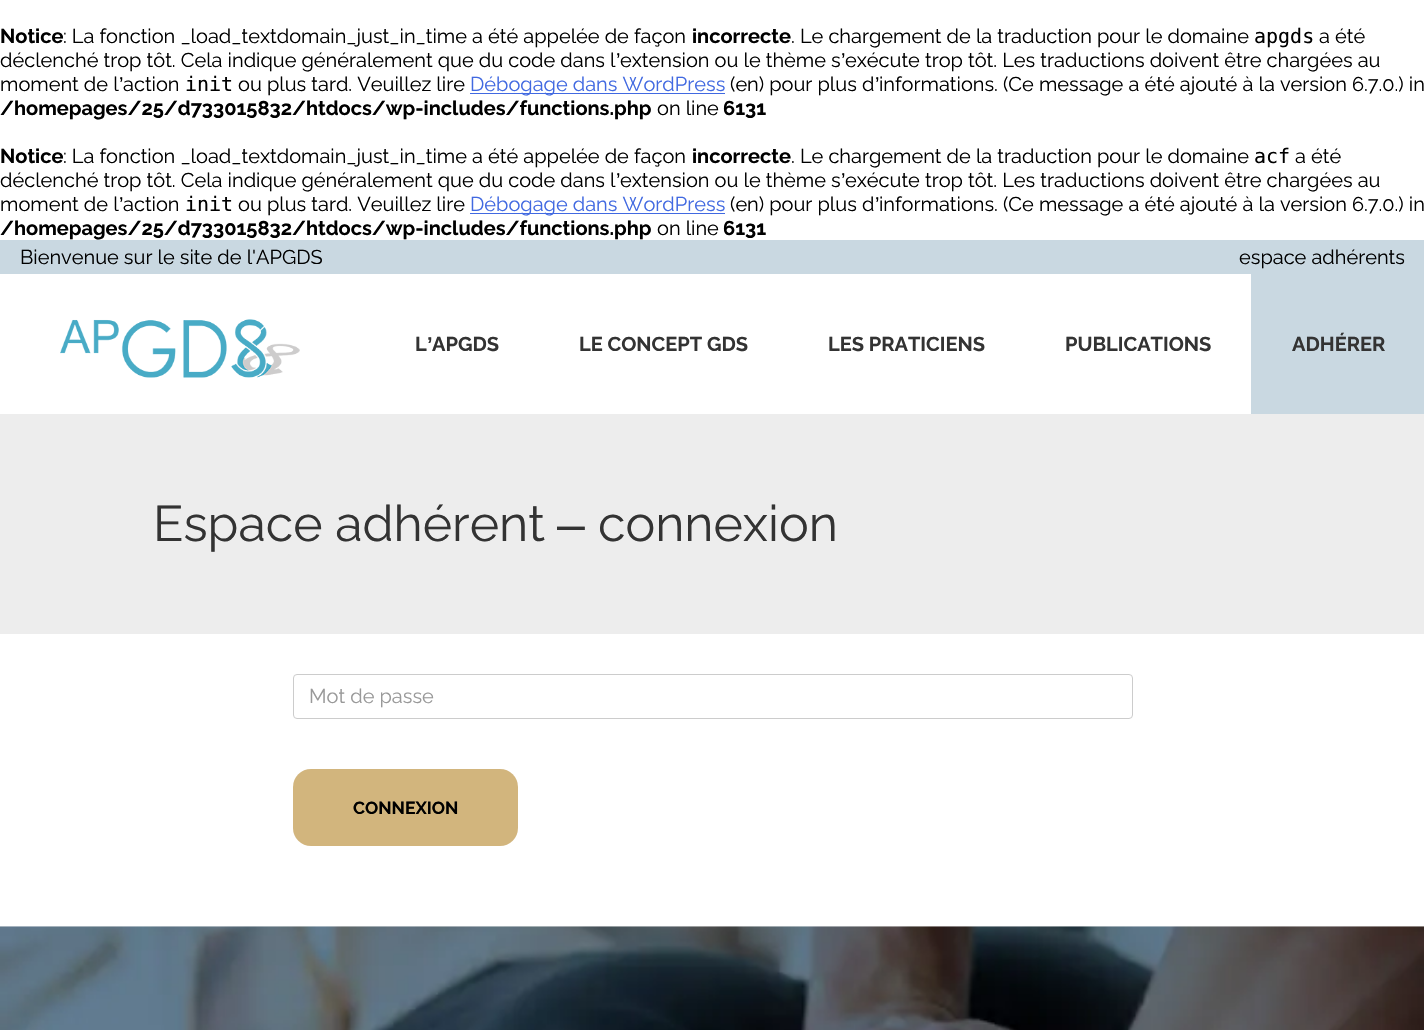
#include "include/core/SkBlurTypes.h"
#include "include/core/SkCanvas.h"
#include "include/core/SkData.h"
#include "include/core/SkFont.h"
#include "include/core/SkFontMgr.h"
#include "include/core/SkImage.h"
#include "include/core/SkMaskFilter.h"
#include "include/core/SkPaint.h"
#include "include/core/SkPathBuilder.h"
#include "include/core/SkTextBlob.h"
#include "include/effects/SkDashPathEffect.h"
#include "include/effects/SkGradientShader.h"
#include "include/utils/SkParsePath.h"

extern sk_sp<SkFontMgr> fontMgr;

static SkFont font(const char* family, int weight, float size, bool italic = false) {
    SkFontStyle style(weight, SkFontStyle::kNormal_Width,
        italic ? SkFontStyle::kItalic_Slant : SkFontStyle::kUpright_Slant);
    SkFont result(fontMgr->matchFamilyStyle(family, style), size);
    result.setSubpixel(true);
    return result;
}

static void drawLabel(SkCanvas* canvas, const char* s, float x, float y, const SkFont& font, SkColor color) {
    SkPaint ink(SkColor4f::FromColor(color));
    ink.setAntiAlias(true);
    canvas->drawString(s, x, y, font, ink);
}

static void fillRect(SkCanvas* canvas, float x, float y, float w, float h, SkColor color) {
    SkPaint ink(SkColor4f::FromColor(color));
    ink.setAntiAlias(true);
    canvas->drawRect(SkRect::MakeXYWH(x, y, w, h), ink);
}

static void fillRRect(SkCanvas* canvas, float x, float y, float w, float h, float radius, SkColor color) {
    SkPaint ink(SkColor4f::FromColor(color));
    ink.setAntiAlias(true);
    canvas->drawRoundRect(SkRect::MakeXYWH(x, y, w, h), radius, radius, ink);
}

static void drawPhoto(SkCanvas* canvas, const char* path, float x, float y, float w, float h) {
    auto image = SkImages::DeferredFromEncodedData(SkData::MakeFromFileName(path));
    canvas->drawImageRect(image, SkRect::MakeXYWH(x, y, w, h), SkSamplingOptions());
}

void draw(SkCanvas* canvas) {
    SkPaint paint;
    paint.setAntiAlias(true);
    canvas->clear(0xFFFFFFFF);
    SkFont font1 = font("Raleway", 700, 20);
    drawLabel(canvas, "Notice", 0, 43, font1, 0xFF000000);
    SkFont font2 = font("Raleway", 400, 20);
    drawLabel(canvas, ": La fonction _load_textdomain_just_in_time a été appelée de façon", 63, 43, font2, 0xFF000000);
    drawLabel(canvas, "incorrecte", 692, 43, font1, 0xFF000000);
    drawLabel(canvas, ". Le chargement de la traduction pour le domaine", 791, 43, font2, 0xFF000000);
    SkFont font3 = font("DejaVu Sans Mono", 400, 20);
    drawLabel(canvas, "apgds", 1254, 43, font3, 0xFF000000);
    drawLabel(canvas, "a été", 1319, 43, font2, 0xFF000000);
    drawLabel(canvas, "déclenché trop tôt. Cela indique généralement que du code dans l", 0, 67, font2, 0xFF000000);
    SkFont font4 = font("Liberation Sans", 400, 20);
    drawLabel(canvas, "’", 616, 67, font4, 0xFF000000);
    drawLabel(canvas, "extension ou le thème s", 620, 67, font2, 0xFF000000);
    drawLabel(canvas, "’", 841, 67, font4, 0xFF000000);
    drawLabel(canvas, "exécute trop tôt. Les traductions doivent être chargées au", 845, 67, font2, 0xFF000000);
    drawLabel(canvas, "moment de l", 0, 91, font2, 0xFF000000);
    drawLabel(canvas, "’", 119, 91, font4, 0xFF000000);
    drawLabel(canvas, "action", 123, 91, font2, 0xFF000000);
    drawLabel(canvas, "init", 185, 91, font3, 0xFF000000);
    drawLabel(canvas, "ou plus tard. Veuillez lire", 238, 91, font2, 0xFF000000);
    fillRect(canvas, 470, 93, 255, 1, 0xFF4169E1);
    drawLabel(canvas, "Débogage dans WordPress", 470, 91, font2, 0xFF4169E1);
    drawLabel(canvas, "(en) pour plus d", 730, 91, font2, 0xFF000000);
    drawLabel(canvas, "’", 875, 91, font4, 0xFF000000);
    drawLabel(canvas, "informations. (Ce message a été ajouté à la version 6.7.0.) in", 879, 91, font2, 0xFF000000);
    drawLabel(canvas, "/homepages/25/d733015832/htdocs/wp-includes/functions.php", 0, 115, font1, 0xFF000000);
    drawLabel(canvas, "on line", 657, 115, font2, 0xFF000000);
    drawLabel(canvas, "6131", 723, 115, font1, 0xFF000000);
    drawLabel(canvas, "Notice", 0, 163, font1, 0xFF000000);
    drawLabel(canvas, ": La fonction _load_textdomain_just_in_time a été appelée de façon", 63, 163, font2, 0xFF000000);
    drawLabel(canvas, "incorrecte", 692, 163, font1, 0xFF000000);
    drawLabel(canvas, ". Le chargement de la traduction pour le domaine", 791, 163, font2, 0xFF000000);
    drawLabel(canvas, "acf", 1254, 163, font3, 0xFF000000);
    drawLabel(canvas, "a été", 1295, 163, font2, 0xFF000000);
    drawLabel(canvas, "déclenché trop tôt. Cela indique généralement que du code dans l", 0, 187, font2, 0xFF000000);
    drawLabel(canvas, "’", 616, 187, font4, 0xFF000000);
    drawLabel(canvas, "extension ou le thème s", 620, 187, font2, 0xFF000000);
    drawLabel(canvas, "’", 841, 187, font4, 0xFF000000);
    drawLabel(canvas, "exécute trop tôt. Les traductions doivent être chargées au", 845, 187, font2, 0xFF000000);
    drawLabel(canvas, "moment de l", 0, 211, font2, 0xFF000000);
    drawLabel(canvas, "’", 119, 211, font4, 0xFF000000);
    drawLabel(canvas, "action", 123, 211, font2, 0xFF000000);
    drawLabel(canvas, "init", 185, 211, font3, 0xFF000000);
    drawLabel(canvas, "ou plus tard. Veuillez lire", 238, 211, font2, 0xFF000000);
    fillRect(canvas, 470, 213, 255, 1, 0xFF4169E1);
    drawLabel(canvas, "Débogage dans WordPress", 470, 211, font2, 0xFF4169E1);
    drawLabel(canvas, "(en) pour plus d", 730, 211, font2, 0xFF000000);
    drawLabel(canvas, "’", 875, 211, font4, 0xFF000000);
    drawLabel(canvas, "informations. (Ce message a été ajouté à la version 6.7.0.) in", 879, 211, font2, 0xFF000000);
    drawLabel(canvas, "/homepages/25/d733015832/htdocs/wp-includes/functions.php", 0, 235, font1, 0xFF000000);
    drawLabel(canvas, "on line", 657, 235, font2, 0xFF000000);
    drawLabel(canvas, "6131", 723, 235, font1, 0xFF000000);
    fillRect(canvas, 0, 240, 1424, 34, 0xFFC9D8E1);
    drawLabel(canvas, "Bienvenue sur le site de l'APGDS", 20, 264, font2, 0xFF000000);
    drawLabel(canvas, "espace adhérents", 1239, 264, font2, 0xFF000000);
    drawPhoto(canvas, "assets/img1.png", 60, 319, 240, 59);
    drawLabel(canvas, "L", 415, 351, font1, 0xFF333333);
    SkFont font5 = font("Liberation Sans", 700, 20);
    drawLabel(canvas, "’", 427, 351, font5, 0xFF333333);
    drawLabel(canvas, "APGDS", 432, 351, font1, 0xFF333333);
    drawLabel(canvas, "LE CONCEPT GDS", 579, 351, font1, 0xFF333333);
    drawLabel(canvas, "LES PRATICIENS", 828, 351, font1, 0xFF333333);
    drawLabel(canvas, "PUBLICATIONS", 1065, 351, font1, 0xFF333333);
    fillRect(canvas, 1251, 274, 173, 140, 0xFFC9D8E1);
    drawLabel(canvas, "ADHÉRER", 1292, 351, font1, 0xFF333333);
    fillRect(canvas, 0, 414, 1424, 220, 0xFFEDEDED);
    SkFont font6 = font("Raleway", 400, 50);
    drawLabel(canvas, "Espace adhérent", 153, 541, font6, 0xFF333333);
    SkFont font7 = font("Liberation Sans", 400, 50);
    drawLabel(canvas, "–", 557, 541, font7, 0xFF333333);
    drawLabel(canvas, "connexion", 598, 541, font6, 0xFF333333);
    paint.setStroke(true);
    paint.setStrokeWidth(1);
    paint.setColor(0xFFCCCCCC);
    canvas->drawRoundRect(SkRect::MakeXYWH(293.5f, 674.5f, 839, 44), 3.5f, 3.5f, paint);
    drawLabel(canvas, "Mot de passe", 309, 703, font2, 0xFF999999);
    fillRRect(canvas, 293, 769, 225, 77, 18, 0xFFD2B57D);
    SkFont font8 = font("Raleway", 700, 17.5f);
    drawLabel(canvas, "CONNEXION", 353, 814, font8, 0xFF000000);
    drawPhoto(canvas, "assets/img2.png", 0, 926, 1424, 104);
}
